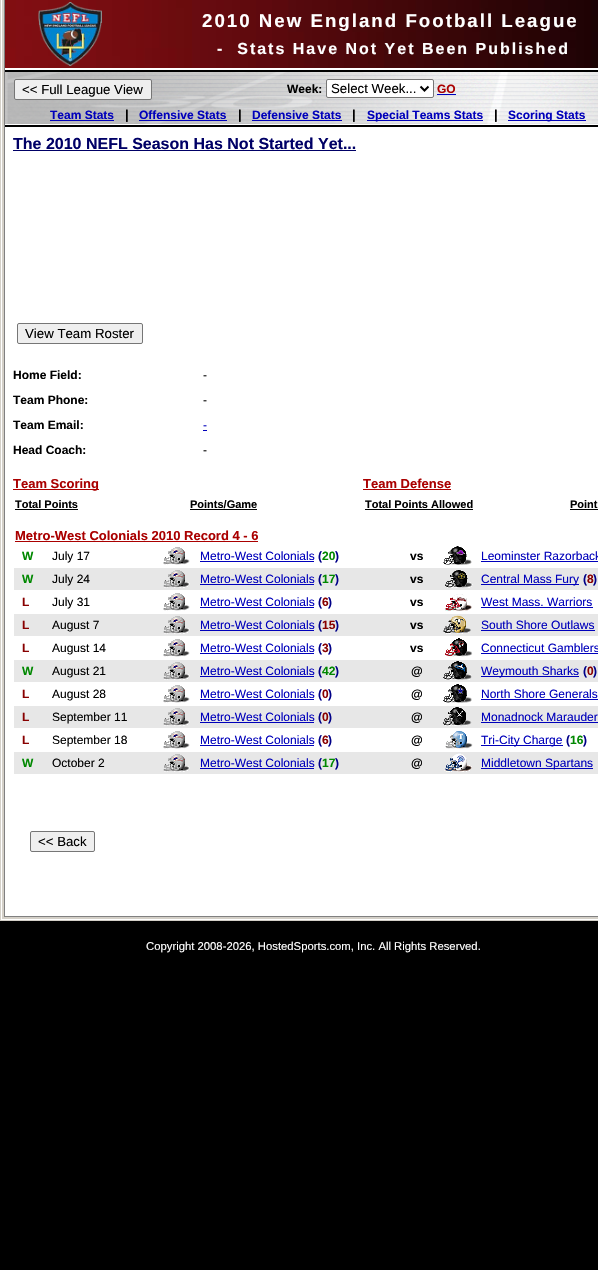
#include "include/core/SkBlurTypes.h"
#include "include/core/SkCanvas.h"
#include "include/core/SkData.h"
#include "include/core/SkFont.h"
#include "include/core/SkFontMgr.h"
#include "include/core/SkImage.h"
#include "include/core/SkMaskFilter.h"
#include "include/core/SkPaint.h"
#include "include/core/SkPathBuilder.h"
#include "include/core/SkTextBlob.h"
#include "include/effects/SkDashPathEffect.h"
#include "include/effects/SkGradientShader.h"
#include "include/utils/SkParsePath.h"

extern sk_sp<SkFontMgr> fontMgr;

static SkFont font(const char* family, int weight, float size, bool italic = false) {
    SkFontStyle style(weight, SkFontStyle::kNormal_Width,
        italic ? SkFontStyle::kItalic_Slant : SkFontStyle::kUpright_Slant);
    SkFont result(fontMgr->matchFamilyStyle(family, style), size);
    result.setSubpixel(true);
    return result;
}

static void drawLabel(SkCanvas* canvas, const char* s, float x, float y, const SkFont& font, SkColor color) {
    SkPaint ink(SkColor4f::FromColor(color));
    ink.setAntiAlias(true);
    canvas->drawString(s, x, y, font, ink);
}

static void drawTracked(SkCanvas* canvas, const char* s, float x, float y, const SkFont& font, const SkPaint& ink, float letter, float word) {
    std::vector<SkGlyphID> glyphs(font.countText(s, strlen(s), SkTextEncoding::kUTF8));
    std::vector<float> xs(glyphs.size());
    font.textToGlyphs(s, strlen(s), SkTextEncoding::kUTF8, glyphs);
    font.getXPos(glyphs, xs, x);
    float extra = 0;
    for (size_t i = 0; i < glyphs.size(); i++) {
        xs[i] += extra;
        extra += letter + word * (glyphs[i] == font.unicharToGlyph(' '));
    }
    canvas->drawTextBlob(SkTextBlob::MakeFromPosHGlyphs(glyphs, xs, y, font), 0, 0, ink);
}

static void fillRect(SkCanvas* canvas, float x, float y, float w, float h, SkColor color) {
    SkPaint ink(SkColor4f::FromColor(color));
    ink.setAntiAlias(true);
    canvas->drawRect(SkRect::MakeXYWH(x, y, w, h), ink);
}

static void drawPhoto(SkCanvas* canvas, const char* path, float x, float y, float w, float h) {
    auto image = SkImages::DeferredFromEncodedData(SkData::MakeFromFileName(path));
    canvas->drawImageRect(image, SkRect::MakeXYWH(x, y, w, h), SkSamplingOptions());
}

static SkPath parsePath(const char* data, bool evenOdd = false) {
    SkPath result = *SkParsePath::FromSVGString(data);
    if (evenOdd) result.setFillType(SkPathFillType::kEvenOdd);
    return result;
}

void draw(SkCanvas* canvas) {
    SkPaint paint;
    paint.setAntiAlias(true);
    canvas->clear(0xFF000000);
    drawPhoto(canvas, "assets/img1.png", 5, 0, 593, 68);
    drawPhoto(canvas, "assets/img2.png", 0, 0, 5, 72);
    drawPhoto(canvas, "assets/img3.png", 38, 2, 64, 64);
    SkFont font1 = font("Liberation Sans", 700, 18.7f);
    paint.setColor(0xFFFFFFFF);
    drawTracked(canvas, "2010 New England Football League", 202, 27, font1, paint, 2, 0);
    SkFont font2 = font("Liberation Sans", 700, 16);
    drawTracked(canvas, "-  Stats Have Not Yet Been Published", 217, 54, font2, paint, 2, 0);
    fillRect(canvas, 5, 68, 593, 2, 0xFFFFFFFF);
    fillRect(canvas, 5, 124, 593, 1, 0xFFFFFFFF);
    drawPhoto(canvas, "assets/img4.png", 0, 72, 5, 53);
    drawPhoto(canvas, "assets/img5.png", 5, 72, 593, 52);
    paint.setColor(0xFFEFEFEF);
    canvas->drawRoundRect(SkRect::MakeXYWH(14.5f, 79.5f, 137, 20), 1.5f, 1.5f, paint);
    paint.setStroke(true);
    paint.setStrokeWidth(1);
    paint.setColor(0xFF767676);
    canvas->drawRoundRect(SkRect::MakeXYWH(14.5f, 79.5f, 137, 20), 1.5f, 1.5f, paint);
    SkFont font3 = font("Liberation Sans", 400, 13.25f);
    drawLabel(canvas, "<< Full League View", 22, 94, font3, 0xFF000000);
    SkFont font4 = font("Liberation Sans", 700, 12);
    drawLabel(canvas, "Week:", 287, 93, font4, 0xFF000000);
    paint.setStroke(false);
    paint.setColor(0xFFFFFFFF);
    canvas->drawRoundRect(SkRect::MakeXYWH(326.5f, 79.5f, 107, 18), 1.5f, 1.5f, paint);
    paint.setStroke(true);
    paint.setColor(0xFF767676);
    canvas->drawRoundRect(SkRect::MakeXYWH(326.5f, 79.5f, 107, 18), 1.5f, 1.5f, paint);
    paint.setStrokeWidth(2);
    paint.setColor(0xFF000000);
    canvas->drawPath(parsePath("M420.5 86.5L424.5 90.5L428.5 86.5"), paint);
    drawLabel(canvas, "Select Week...", 331, 93, font3, 0xFF000000);
    drawLabel(canvas, "GO", 437, 93, font4, 0xFFAA0000);
    fillRect(canvas, 437, 94, 19, 1, 0xFF0000BB);
    drawLabel(canvas, "Team Stats", 50, 119, font4, 0xFF0000BB);
    fillRect(canvas, 50, 120, 64, 1, 0xFF0000BB);
    SkFont font5 = font("Liberation Sans", 700, 13);
    drawLabel(canvas, "|", 125, 119, font5, 0xFF000000);
    drawLabel(canvas, "Offensive Stats", 139, 119, font4, 0xFF0000BB);
    fillRect(canvas, 139, 120, 88, 1, 0xFF0000BB);
    drawLabel(canvas, "|", 238, 119, font5, 0xFF000000);
    drawLabel(canvas, "Defensive Stats", 252, 119, font4, 0xFF0000BB);
    fillRect(canvas, 252, 120, 90, 1, 0xFF0000BB);
    drawLabel(canvas, "|", 352, 119, font5, 0xFF000000);
    fillRect(canvas, 367, 120, 116, 1, 0xFF0000BB);
    drawLabel(canvas, "Special Teams Stats", 367, 119, font4, 0xFF0000BB);
    drawLabel(canvas, "|", 494, 119, font5, 0xFF000000);
    fillRect(canvas, 508, 120, 78, 1, 0xFF0000BB);
    drawLabel(canvas, "Scoring Stats", 508, 119, font4, 0xFF0000BB);
    fillRect(canvas, 5, 127, 593, 789, 0xFFFFFFFF);
    drawPhoto(canvas, "assets/img6.png", 0, 125, 5, 791);
    drawLabel(canvas, "The 2010 NEFL Season Has Not Started Yet...", 13, 149, font2, 0xFF000066);
    fillRect(canvas, 13, 150, 343, 1, 0xFF000066);
    paint.setStroke(false);
    paint.setColor(0xFFEFEFEF);
    canvas->drawRoundRect(SkRect::MakeXYWH(17.5f, 323.5f, 125, 20), 1.5f, 1.5f, paint);
    paint.setStroke(true);
    paint.setStrokeWidth(1);
    paint.setColor(0xFF767676);
    canvas->drawRoundRect(SkRect::MakeXYWH(17.5f, 323.5f, 125, 20), 1.5f, 1.5f, paint);
    drawLabel(canvas, "View Team Roster", 25, 338, font3, 0xFF000000);
    drawLabel(canvas, "Home Field:", 13, 379, font4, 0xFF000000);
    SkFont font6 = font("Liberation Sans", 400, 12);
    drawLabel(canvas, "-", 203, 379, font6, 0xFF000000);
    drawLabel(canvas, "Team Phone:", 13, 404, font4, 0xFF000000);
    drawLabel(canvas, "-", 203, 404, font6, 0xFF000000);
    drawLabel(canvas, "Team Email:", 13, 429, font4, 0xFF000000);
    drawLabel(canvas, "-", 203, 429, font6, 0xFF0000BB);
    fillRect(canvas, 203, 430, 4, 1, 0xFF0000BB);
    drawLabel(canvas, "Head Coach:", 13, 454, font4, 0xFF000000);
    drawLabel(canvas, "-", 203, 454, font6, 0xFF000000);
    fillRect(canvas, 13, 489, 86, 1, 0xFFAA0000);
    drawLabel(canvas, "Team Scoring", 13, 488, font5, 0xFFAA0000);
    SkFont font7 = font("Liberation Sans", 700, 11);
    drawLabel(canvas, "Total Points", 15, 508, font7, 0xFF000000);
    fillRect(canvas, 15, 509, 63, 1, 0xFF000000);
    drawLabel(canvas, "Points/Game", 190, 508, font7, 0xFF000000);
    fillRect(canvas, 190, 509, 67, 1, 0xFF000000);
    drawLabel(canvas, "Team Defense", 363, 488, font5, 0xFFAA0000);
    fillRect(canvas, 363, 489, 88, 1, 0xFFAA0000);
    drawLabel(canvas, "Total Points Allowed", 365, 508, font7, 0xFF000000);
    fillRect(canvas, 365, 509, 108, 1, 0xFF000000);
    drawLabel(canvas, "Point", 570, 508, font7, 0xFF000000);
    fillRect(canvas, 570, 509, 28, 1, 0xFF000000);
    drawLabel(canvas, "Metro-West Colonials 2010 Record 4 - 6", 15, 540, font5, 0xFFAA0000);
    fillRect(canvas, 15, 541, 243, 1, 0xFFAA0000);
    drawLabel(canvas, "W", 22, 560, font4, 0xFF008800);
    drawLabel(canvas, "July 17", 52, 560, font6, 0xFF000000);
    drawPhoto(canvas, "assets/img7.png", 163, 547, 27, 18);
    drawLabel(canvas, "Metro-West Colonials", 200, 560, font6, 0xFF0000BB);
    fillRect(canvas, 200, 561, 114, 1, 0xFF0000BB);
    drawLabel(canvas, "(", 318, 560, font4, 0xFF000088);
    drawLabel(canvas, "20", 322, 560, font4, 0xFF008800);
    drawLabel(canvas, ")", 335, 560, font4, 0xFF000088);
    drawLabel(canvas, "vs", 410, 560, font4, 0xFF000000);
    drawPhoto(canvas, "assets/img8.png", 443, 546, 29, 19);
    drawLabel(canvas, "Leominster Razorback", 481, 560, font6, 0xFF0000BB);
    fillRect(canvas, 481, 561, 117, 1, 0xFF0000BB);
    fillRect(canvas, 14, 568, 584, 22, 0xFFE7E7E7);
    drawLabel(canvas, "W", 22, 583, font4, 0xFF008800);
    drawLabel(canvas, "July 24", 52, 583, font6, 0xFF000000);
    drawPhoto(canvas, "assets/img9.png", 163, 570, 27, 18);
    drawLabel(canvas, "Metro-West Colonials", 200, 583, font6, 0xFF0000BB);
    fillRect(canvas, 200, 584, 114, 1, 0xFF0000BB);
    drawLabel(canvas, "(", 318, 583, font4, 0xFF000088);
    drawLabel(canvas, "17", 322, 583, font4, 0xFF008800);
    drawLabel(canvas, ")", 335, 583, font4, 0xFF000088);
    drawLabel(canvas, "vs", 410, 583, font4, 0xFF000000);
    drawPhoto(canvas, "assets/img10.png", 445, 570, 28, 18);
    fillRect(canvas, 481, 584, 98, 1, 0xFF0000BB);
    drawLabel(canvas, "Central Mass Fury", 481, 583, font6, 0xFF0000BB);
    drawLabel(canvas, "(", 583, 583, font4, 0xFF000088);
    drawLabel(canvas, "8", 587, 583, font4, 0xFF880000);
    drawLabel(canvas, ")", 593, 583, font4, 0xFF000088);
    drawLabel(canvas, "L", 22, 606, font4, 0xFF880000);
    drawLabel(canvas, "July 31", 52, 606, font6, 0xFF000000);
    drawPhoto(canvas, "assets/img7.png", 163, 593, 27, 18);
    drawLabel(canvas, "Metro-West Colonials", 200, 606, font6, 0xFF0000BB);
    fillRect(canvas, 200, 607, 114, 1, 0xFF0000BB);
    drawLabel(canvas, "(", 318, 606, font4, 0xFF000088);
    drawLabel(canvas, "6", 322, 606, font4, 0xFF880000);
    drawLabel(canvas, ")", 328, 606, font4, 0xFF000088);
    drawLabel(canvas, "vs", 410, 606, font4, 0xFF000000);
    drawPhoto(canvas, "assets/img11.png", 444, 594, 28, 17);
    drawLabel(canvas, "West Mass. Warriors", 481, 606, font6, 0xFF0000BB);
    fillRect(canvas, 481, 607, 112, 1, 0xFF0000BB);
    fillRect(canvas, 14, 614, 584, 22, 0xFFE7E7E7);
    drawLabel(canvas, "L", 22, 629, font4, 0xFF880000);
    drawLabel(canvas, "August 7", 52, 629, font6, 0xFF000000);
    drawPhoto(canvas, "assets/img9.png", 163, 616, 27, 18);
    drawLabel(canvas, "Metro-West Colonials", 200, 629, font6, 0xFF0000BB);
    fillRect(canvas, 200, 630, 114, 1, 0xFF0000BB);
    drawLabel(canvas, "(", 318, 629, font4, 0xFF000088);
    drawLabel(canvas, "15", 322, 629, font4, 0xFF880000);
    drawLabel(canvas, ")", 335, 629, font4, 0xFF000088);
    drawLabel(canvas, "vs", 410, 629, font4, 0xFF000000);
    drawPhoto(canvas, "assets/img12.png", 443, 615, 28, 19);
    drawLabel(canvas, "South Shore Outlaws", 481, 629, font6, 0xFF0000BB);
    fillRect(canvas, 481, 630, 114, 1, 0xFF0000BB);
    drawLabel(canvas, "L", 22, 652, font4, 0xFF880000);
    drawLabel(canvas, "August 14", 52, 652, font6, 0xFF000000);
    drawPhoto(canvas, "assets/img7.png", 163, 639, 27, 18);
    drawLabel(canvas, "Metro-West Colonials", 200, 652, font6, 0xFF0000BB);
    fillRect(canvas, 200, 653, 114, 1, 0xFF0000BB);
    drawLabel(canvas, "(", 318, 652, font4, 0xFF000088);
    drawLabel(canvas, "3", 322, 652, font4, 0xFF880000);
    drawLabel(canvas, ")", 328, 652, font4, 0xFF000088);
    drawLabel(canvas, "vs", 410, 652, font4, 0xFF000000);
    drawPhoto(canvas, "assets/img13.png", 445, 638, 28, 19);
    drawLabel(canvas, "Connecticut Gamblers", 481, 652, font6, 0xFF0000BB);
    fillRect(canvas, 481, 653, 117, 1, 0xFF0000BB);
    fillRect(canvas, 14, 660, 584, 22, 0xFFE7E7E7);
    drawLabel(canvas, "W", 22, 675, font4, 0xFF008800);
    drawLabel(canvas, "August 21", 52, 675, font6, 0xFF000000);
    drawPhoto(canvas, "assets/img9.png", 163, 662, 27, 18);
    drawLabel(canvas, "Metro-West Colonials", 200, 675, font6, 0xFF0000BB);
    fillRect(canvas, 200, 676, 114, 1, 0xFF0000BB);
    drawLabel(canvas, "(", 318, 675, font4, 0xFF000088);
    drawLabel(canvas, "42", 322, 675, font4, 0xFF008800);
    drawLabel(canvas, ")", 335, 675, font4, 0xFF000088);
    drawLabel(canvas, "@", 411, 675, font4, 0xFF000000);
    drawPhoto(canvas, "assets/img14.png", 443, 661, 29, 19);
    fillRect(canvas, 481, 676, 98, 1, 0xFF0000BB);
    drawLabel(canvas, "Weymouth Sharks", 481, 675, font6, 0xFF0000BB);
    drawLabel(canvas, "(", 583, 675, font4, 0xFF000088);
    drawLabel(canvas, "0", 587, 675, font4, 0xFF880000);
    drawLabel(canvas, ")", 593, 675, font4, 0xFF000088);
    drawLabel(canvas, "L", 22, 698, font4, 0xFF880000);
    drawLabel(canvas, "August 28", 52, 698, font6, 0xFF000000);
    drawPhoto(canvas, "assets/img7.png", 163, 685, 27, 18);
    drawLabel(canvas, "Metro-West Colonials", 200, 698, font6, 0xFF0000BB);
    fillRect(canvas, 200, 699, 114, 1, 0xFF0000BB);
    drawLabel(canvas, "(", 318, 698, font4, 0xFF000088);
    drawLabel(canvas, "0", 322, 698, font4, 0xFF880000);
    drawLabel(canvas, ")", 328, 698, font4, 0xFF000088);
    drawLabel(canvas, "@", 411, 698, font4, 0xFF000000);
    drawPhoto(canvas, "assets/img15.png", 443, 684, 29, 19);
    drawLabel(canvas, "North Shore Generals", 481, 698, font6, 0xFF0000BB);
    fillRect(canvas, 481, 699, 117, 1, 0xFF0000BB);
    fillRect(canvas, 14, 706, 584, 22, 0xFFE7E7E7);
    drawLabel(canvas, "L", 22, 721, font4, 0xFF880000);
    drawLabel(canvas, "September 11", 52, 721, font6, 0xFF000000);
    drawPhoto(canvas, "assets/img9.png", 163, 708, 27, 18);
    drawLabel(canvas, "Metro-West Colonials", 200, 721, font6, 0xFF0000BB);
    fillRect(canvas, 200, 722, 114, 1, 0xFF0000BB);
    drawLabel(canvas, "(", 318, 721, font4, 0xFF000088);
    drawLabel(canvas, "0", 322, 721, font4, 0xFF880000);
    drawLabel(canvas, ")", 328, 721, font4, 0xFF000088);
    drawLabel(canvas, "@", 411, 721, font4, 0xFF000000);
    drawPhoto(canvas, "assets/img16.png", 443, 707, 29, 19);
    drawLabel(canvas, "Monadnock Marauder", 481, 721, font6, 0xFF0000BB);
    fillRect(canvas, 481, 722, 117, 1, 0xFF0000BB);
    drawLabel(canvas, "L", 22, 744, font4, 0xFF880000);
    drawLabel(canvas, "September 18", 52, 744, font6, 0xFF000000);
    drawPhoto(canvas, "assets/img7.png", 163, 731, 27, 18);
    drawLabel(canvas, "Metro-West Colonials", 200, 744, font6, 0xFF0000BB);
    fillRect(canvas, 200, 745, 114, 1, 0xFF0000BB);
    drawLabel(canvas, "(", 318, 744, font4, 0xFF000088);
    drawLabel(canvas, "6", 322, 744, font4, 0xFF880000);
    drawLabel(canvas, ")", 328, 744, font4, 0xFF000088);
    drawLabel(canvas, "@", 411, 744, font4, 0xFF000000);
    drawPhoto(canvas, "assets/img17.png", 445, 731, 28, 18);
    fillRect(canvas, 481, 745, 82, 1, 0xFF0000BB);
    drawLabel(canvas, "Tri-City Charge", 481, 744, font6, 0xFF0000BB);
    drawLabel(canvas, "(", 566, 744, font4, 0xFF000088);
    drawLabel(canvas, "16", 570, 744, font4, 0xFF008800);
    drawLabel(canvas, ")", 583, 744, font4, 0xFF000088);
    fillRect(canvas, 14, 752, 584, 22, 0xFFE7E7E7);
    drawLabel(canvas, "W", 22, 767, font4, 0xFF008800);
    drawLabel(canvas, "October 2", 52, 767, font6, 0xFF000000);
    drawPhoto(canvas, "assets/img9.png", 163, 754, 27, 18);
    drawLabel(canvas, "Metro-West Colonials", 200, 767, font6, 0xFF0000BB);
    fillRect(canvas, 200, 768, 114, 1, 0xFF0000BB);
    drawLabel(canvas, "(", 318, 767, font4, 0xFF000088);
    drawLabel(canvas, "17", 322, 767, font4, 0xFF008800);
    drawLabel(canvas, ")", 335, 767, font4, 0xFF000088);
    drawLabel(canvas, "@", 411, 767, font4, 0xFF000000);
    drawPhoto(canvas, "assets/img18.png", 444, 753, 28, 19);
    fillRect(canvas, 481, 768, 112, 1, 0xFF0000BB);
    drawLabel(canvas, "Middletown Spartans", 481, 767, font6, 0xFF0000BB);
    paint.setStroke(false);
    paint.setColor(0xFFEFEFEF);
    canvas->drawRoundRect(SkRect::MakeXYWH(30.5f, 831.5f, 64, 20), 1.5f, 1.5f, paint);
    paint.setStroke(true);
    paint.setColor(0xFF767676);
    canvas->drawRoundRect(SkRect::MakeXYWH(30.5f, 831.5f, 64, 20), 1.5f, 1.5f, paint);
    drawLabel(canvas, "<< Back", 38, 846, font3, 0xFF000000);
    drawPhoto(canvas, "assets/img19.png", 0, 916, 5, 5);
    drawPhoto(canvas, "assets/img20.png", 5, 916, 593, 5);
    SkFont font8 = font("Liberation Sans", 400, 11.3f);
    drawLabel(canvas, "Copyright 2008-2026, HostedSports.com, Inc. All Rights Reserved.", 146, 950, font8, 0xFFFFFFFF);
}
